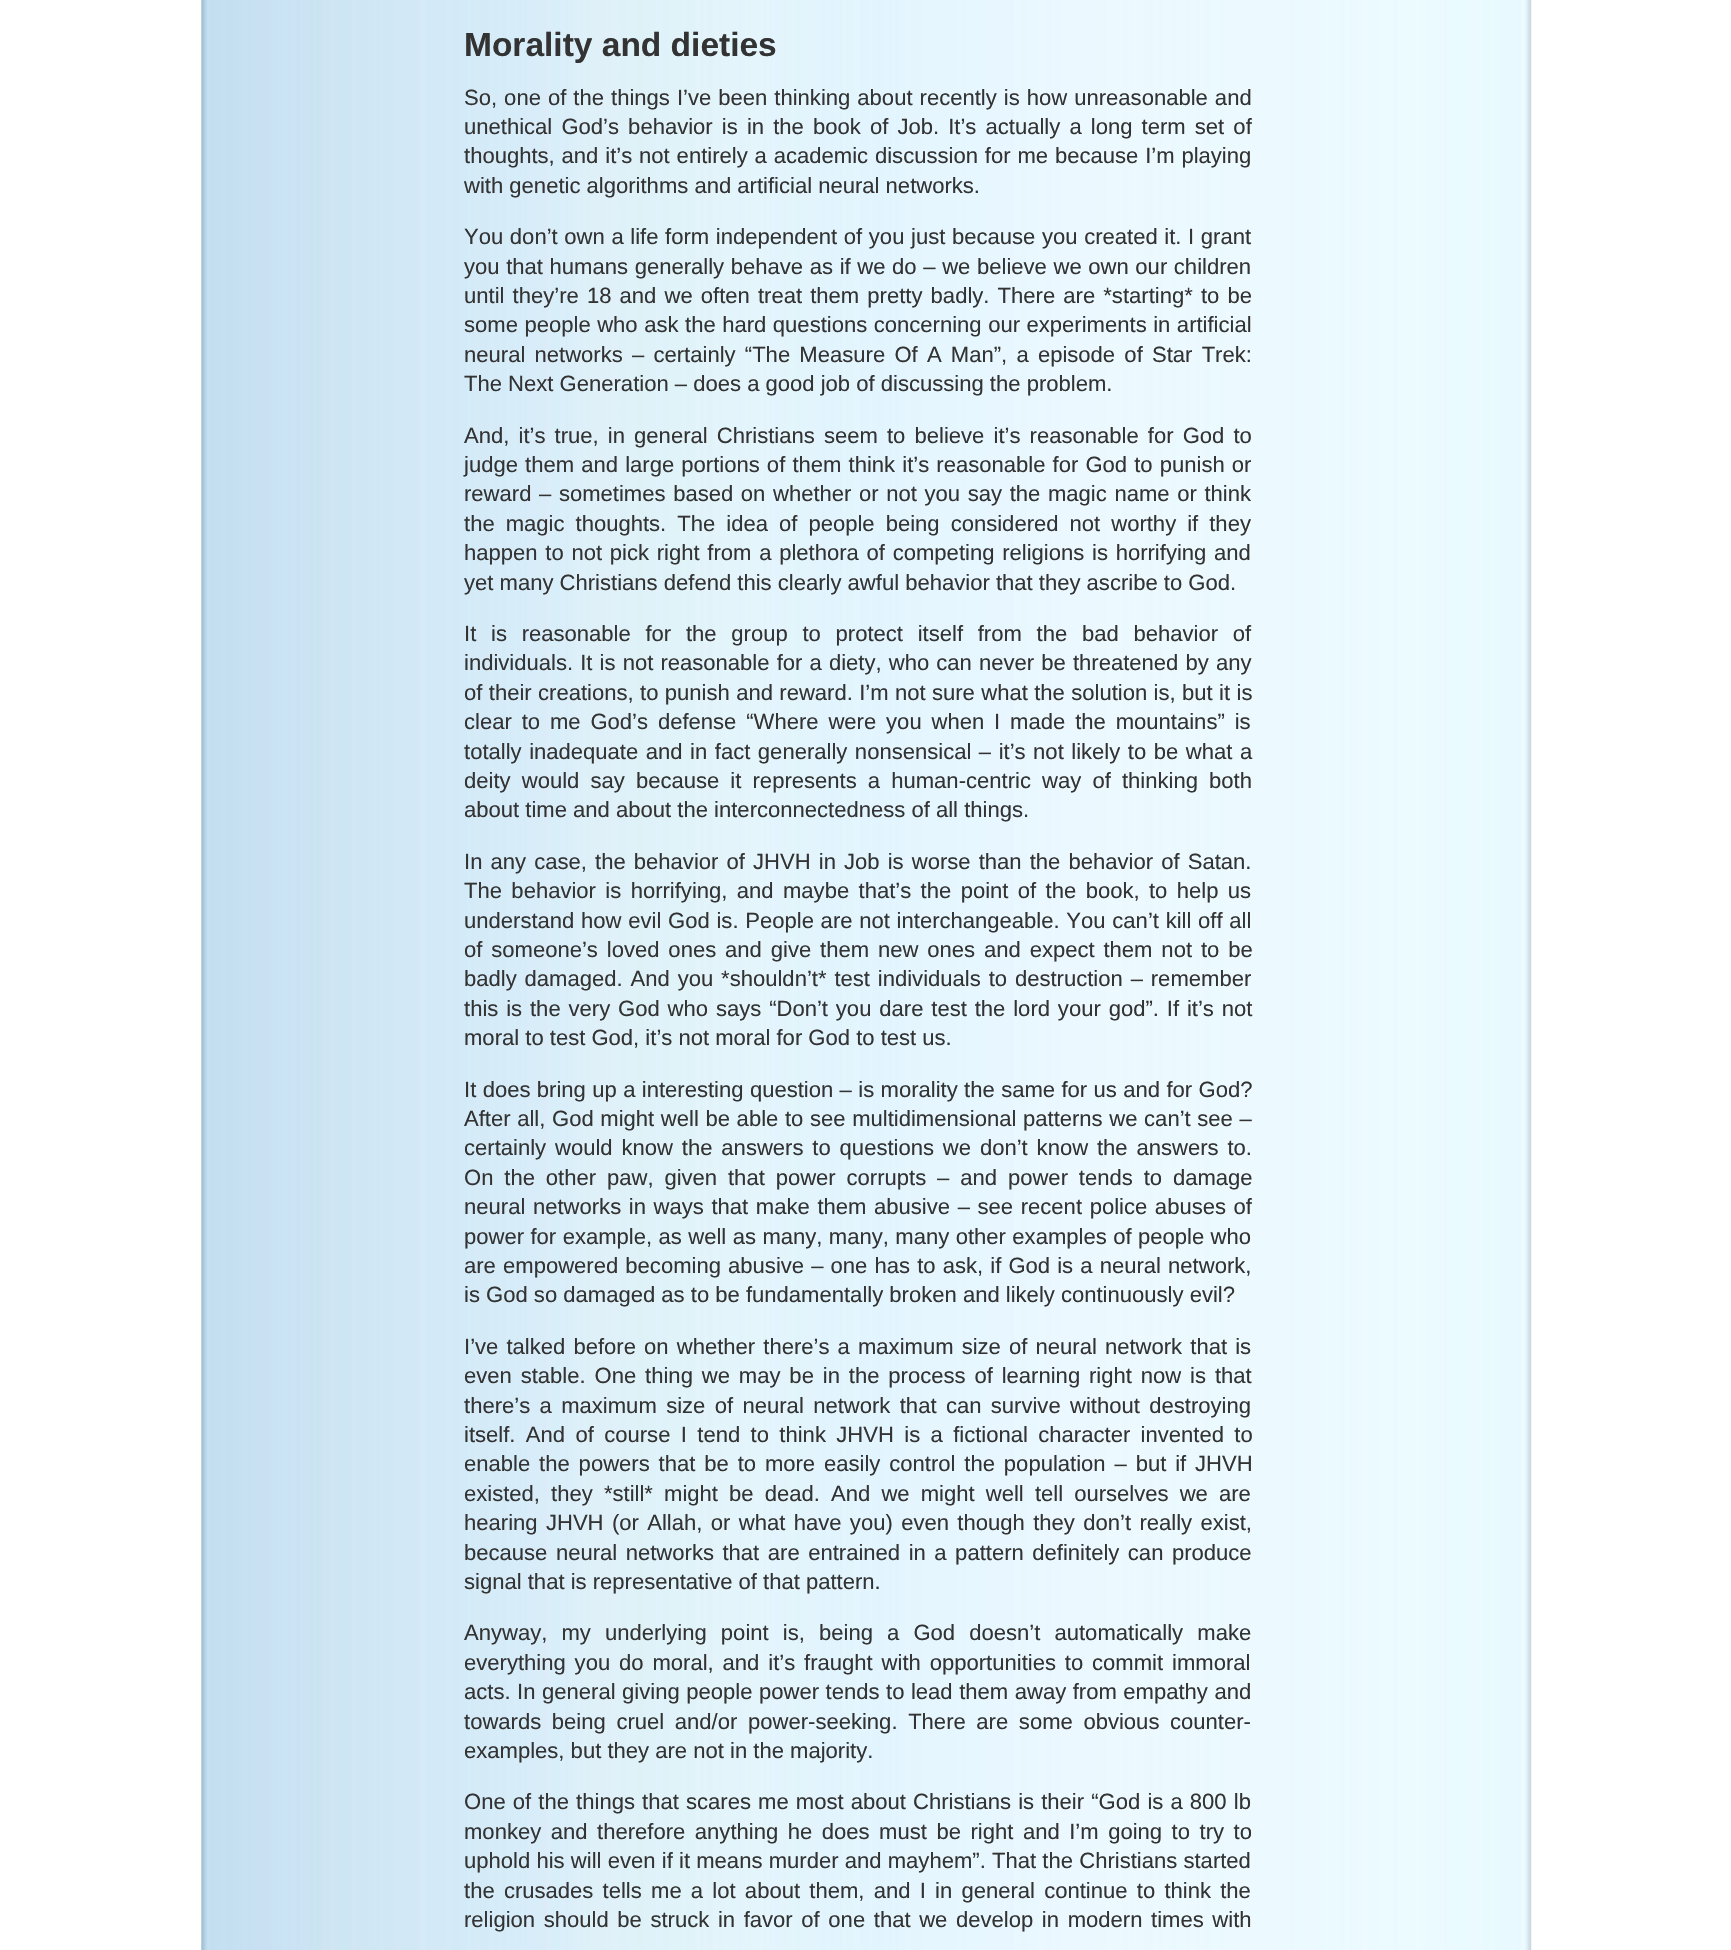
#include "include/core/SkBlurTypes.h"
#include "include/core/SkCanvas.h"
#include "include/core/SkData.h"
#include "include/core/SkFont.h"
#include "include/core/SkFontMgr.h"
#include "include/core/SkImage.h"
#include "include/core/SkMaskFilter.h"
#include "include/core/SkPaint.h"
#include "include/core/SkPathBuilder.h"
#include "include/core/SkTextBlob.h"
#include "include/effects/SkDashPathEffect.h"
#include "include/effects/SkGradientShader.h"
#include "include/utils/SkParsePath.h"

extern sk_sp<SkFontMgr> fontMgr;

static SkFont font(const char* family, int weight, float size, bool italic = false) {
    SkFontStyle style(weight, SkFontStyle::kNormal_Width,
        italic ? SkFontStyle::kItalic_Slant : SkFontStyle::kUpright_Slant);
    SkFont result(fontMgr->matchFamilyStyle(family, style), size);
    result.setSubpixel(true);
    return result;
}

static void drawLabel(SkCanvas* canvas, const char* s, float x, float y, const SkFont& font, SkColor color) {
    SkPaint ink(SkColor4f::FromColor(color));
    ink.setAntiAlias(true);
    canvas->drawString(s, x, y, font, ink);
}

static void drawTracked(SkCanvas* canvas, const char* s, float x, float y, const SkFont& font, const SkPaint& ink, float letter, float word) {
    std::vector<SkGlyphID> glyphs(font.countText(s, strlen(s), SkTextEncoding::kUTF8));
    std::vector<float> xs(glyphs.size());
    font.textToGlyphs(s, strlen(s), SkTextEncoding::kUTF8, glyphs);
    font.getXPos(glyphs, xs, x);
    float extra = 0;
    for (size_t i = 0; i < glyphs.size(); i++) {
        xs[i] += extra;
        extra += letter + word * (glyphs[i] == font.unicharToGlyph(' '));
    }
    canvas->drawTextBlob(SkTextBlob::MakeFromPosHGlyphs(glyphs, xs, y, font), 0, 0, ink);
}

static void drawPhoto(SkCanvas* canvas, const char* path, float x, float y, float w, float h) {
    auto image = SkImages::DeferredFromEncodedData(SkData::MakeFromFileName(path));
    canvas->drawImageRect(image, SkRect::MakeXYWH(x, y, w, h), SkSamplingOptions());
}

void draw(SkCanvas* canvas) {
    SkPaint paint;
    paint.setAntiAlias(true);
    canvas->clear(0xFFFFFFFF);
    drawPhoto(canvas, "assets/img1.png", 201, 0, 1331, 1950);
    SkFont font1 = font("Liberation Sans", 700, 33.5f);
    drawLabel(canvas, "Morality and dieties", 464, 56, font1, 0xFF333333);
    SkFont font2 = font("Liberation Sans", 400, 22.05f);
    paint.setColor(0xFF333333);
    drawTracked(canvas, "So, one of the things I’ve been thinking about recently is how unreasonable and", 464, 105, font2, paint, 0, 0.9f);
    drawTracked(canvas, "unethical God’s behavior is in the book of Job. It’s actually a long term set of", 464, 134, font2, paint, 0, 3);
    drawTracked(canvas, "thoughts, and it’s not entirely a academic discussion for me because I’m playing", 464, 163, font2, paint, 0, 0.75f);
    drawLabel(canvas, "with genetic algorithms and artificial neural networks.", 464, 193, font2, 0xFF333333);
    drawTracked(canvas, "You don’t own a life form independent of you just because you created it. I grant", 464, 244, font2, paint, 0, 0.5f);
    drawTracked(canvas, "you that humans generally behave as if we do – we believe we own our children", 464, 274, font2, paint, 0, 0.5f);
    drawTracked(canvas, "until they’re 18 and we often treat them pretty badly. There are *starting* to be", 464, 303, font2, paint, 0, 2);
    drawTracked(canvas, "some people who ask the hard questions concerning our experiments in artificial", 464, 332, font2, paint, 0, 0.4f);
    drawTracked(canvas, "neural networks – certainly “The Measure Of A Man”, a episode of Star Trek:", 464, 362, font2, paint, 0, 3.1f);
    drawLabel(canvas, "The Next Generation – does a good job of discussing the problem.", 464, 391, font2, 0xFF333333);
    drawTracked(canvas, "And, it’s true, in general Christians seem to believe it’s reasonable for God to", 464, 443, font2, paint, 0, 3);
    drawTracked(canvas, "judge them and large portions of them think it’s reasonable for God to punish or", 464, 472, font2, paint, 0, 1);
    drawTracked(canvas, "reward – sometimes based on whether or not you say the magic name or think", 464, 501, font2, paint, 0, 1.5f);
    drawTracked(canvas, "the magic thoughts. The idea of people being considered not worthy if they", 464, 531, font2, paint, 0, 4.9f);
    drawTracked(canvas, "happen to not pick right from a plethora of competing religions is horrifying and", 464, 560, font2, paint, 0, 1.6f);
    drawLabel(canvas, "yet many Christians defend this clearly awful behavior that they ascribe to God.", 464, 590, font2, 0xFF333333);
    drawTracked(canvas, "It is reasonable for the group to protect itself from the bad behavior of", 464, 641, font2, paint, 0, 8.6f);
    drawTracked(canvas, "individuals. It is not reasonable for a diety, who can never be threatened by any", 464, 670, font2, paint, 0, 1);
    drawTracked(canvas, "of their creations, to punish and reward. I’m not sure what the solution is, but it is", 464, 700, font2, paint, 0, 0.25f);
    drawTracked(canvas, "clear to me God’s defense “Where were you when I made the mountains” is", 464, 729, font2, paint, 0, 3.75f);
    drawTracked(canvas, "totally inadequate and in fact generally nonsensical – it’s not likely to be what a", 464, 759, font2, paint, 0, 1.4f);
    drawTracked(canvas, "deity would say because it represents a human-centric way of thinking both", 464, 788, font2, paint, 0, 5);
    drawLabel(canvas, "about time and about the interconnectedness of all things.", 464, 817, font2, 0xFF333333);
    drawTracked(canvas, "In any case, the behavior of JHVH in Job is worse than the behavior of Satan.", 464, 869, font2, paint, 0, 2);
    drawTracked(canvas, "The behavior is horrifying, and maybe that’s the point of the book, to help us", 464, 898, font2, paint, 0, 3.25f);
    drawTracked(canvas, "understand how evil God is. People are not interchangeable. You can’t kill off all", 464, 928, font2, paint, 0, 0.6f);
    drawTracked(canvas, "of someone’s loved ones and give them new ones and expect them not to be", 464, 957, font2, paint, 0, 2.75f);
    drawTracked(canvas, "badly damaged. And you *shouldn’t* test individuals to destruction – remember", 464, 986, font2, paint, 0, 1.75f);
    drawTracked(canvas, "this is the very God who says “Don’t you dare test the lord your god”. If it’s not", 464, 1016, font2, paint, 0, 1.75f);
    drawLabel(canvas, "moral to test God, it’s not moral for God to test us.", 464, 1045, font2, 0xFF333333);
    drawTracked(canvas, "It does bring up a interesting question – is morality the same for us and for God?", 464, 1097, font2, paint, 0, 0.25f);
    drawTracked(canvas, "After all, God might well be able to see multidimensional patterns we can’t see –", 464, 1126, font2, paint, 0, 0.5f);
    drawTracked(canvas, "certainly would know the answers to questions we don’t know the answers to.", 464, 1155, font2, paint, 0, 2.75f);
    drawTracked(canvas, "On the other paw, given that power corrupts – and power tends to damage", 464, 1185, font2, paint, 0, 4.75f);
    drawTracked(canvas, "neural networks in ways that make them abusive – see recent police abuses of", 464, 1214, font2, paint, 0, 1.5f);
    drawTracked(canvas, "power for example, as well as many, many, many other examples of people who", 464, 1244, font2, paint, 0, 0.3f);
    drawTracked(canvas, "are empowered becoming abusive – one has to ask, if God is a neural network,", 464, 1273, font2, paint, 0, 1);
    drawLabel(canvas, "is God so damaged as to be fundamentally broken and likely continuously evil?", 464, 1302, font2, 0xFF333333);
    drawTracked(canvas, "I’ve talked before on whether there’s a maximum size of neural network that is", 464, 1354, font2, paint, 0, 2);
    drawTracked(canvas, "even stable. One thing we may be in the process of learning right now is that", 464, 1383, font2, paint, 0, 2.75f);
    drawTracked(canvas, "there’s a maximum size of neural network that can survive without destroying", 464, 1413, font2, paint, 0, 3.25f);
    drawTracked(canvas, "itself. And of course I tend to think JHVH is a fictional character invented to", 464, 1442, font2, paint, 0, 4.25f);
    drawTracked(canvas, "enable the powers that be to more easily control the population – but if JHVH", 464, 1471, font2, paint, 0, 2.75f);
    drawTracked(canvas, "existed, they *still* might be dead. And we might well tell ourselves we are", 464, 1501, font2, paint, 0, 5);
    drawTracked(canvas, "hearing JHVH (or Allah, or what have you) even though they don’t really exist,", 464, 1530, font2, paint, 0, 2.25f);
    drawTracked(canvas, "because neural networks that are entrained in a pattern definitely can produce", 464, 1560, font2, paint, 0, 2.4f);
    drawLabel(canvas, "signal that is representative of that pattern.", 464, 1589, font2, 0xFF333333);
    drawTracked(canvas, "Anyway, my underlying point is, being a God doesn’t automatically make", 464, 1640, font2, paint, 0, 8);
    drawTracked(canvas, "everything you do moral, and it’s fraught with opportunities to commit immoral", 464, 1670, font2, paint, 0, 2.75f);
    drawTracked(canvas, "acts. In general giving people power tends to lead them away from empathy and", 464, 1699, font2, paint, 0, 0.4f);
    drawTracked(canvas, "towards being cruel and/or power-seeking. There are some obvious counter-", 464, 1729, font2, paint, 0, 4.5f);
    drawLabel(canvas, "examples, but they are not in the majority.", 464, 1758, font2, 0xFF333333);
    drawTracked(canvas, "One of the things that scares me most about Christians is their “God is a 800 lb", 464, 1809, font2, paint, 0, 1);
    drawTracked(canvas, "monkey and therefore anything he does must be right and I’m going to try to", 464, 1839, font2, paint, 0, 3.4f);
    drawTracked(canvas, "uphold his will even if it means murder and mayhem”. That the Christians started", 464, 1868, font2, paint, 0, 0.1f);
    drawTracked(canvas, "the crusades tells me a lot about them, and I in general continue to think the", 464, 1898, font2, paint, 0, 3.1f);
    drawTracked(canvas, "religion should be struck in favor of one that we develop in modern times with", 464, 1927, font2, paint, 0, 2.5f);
}
